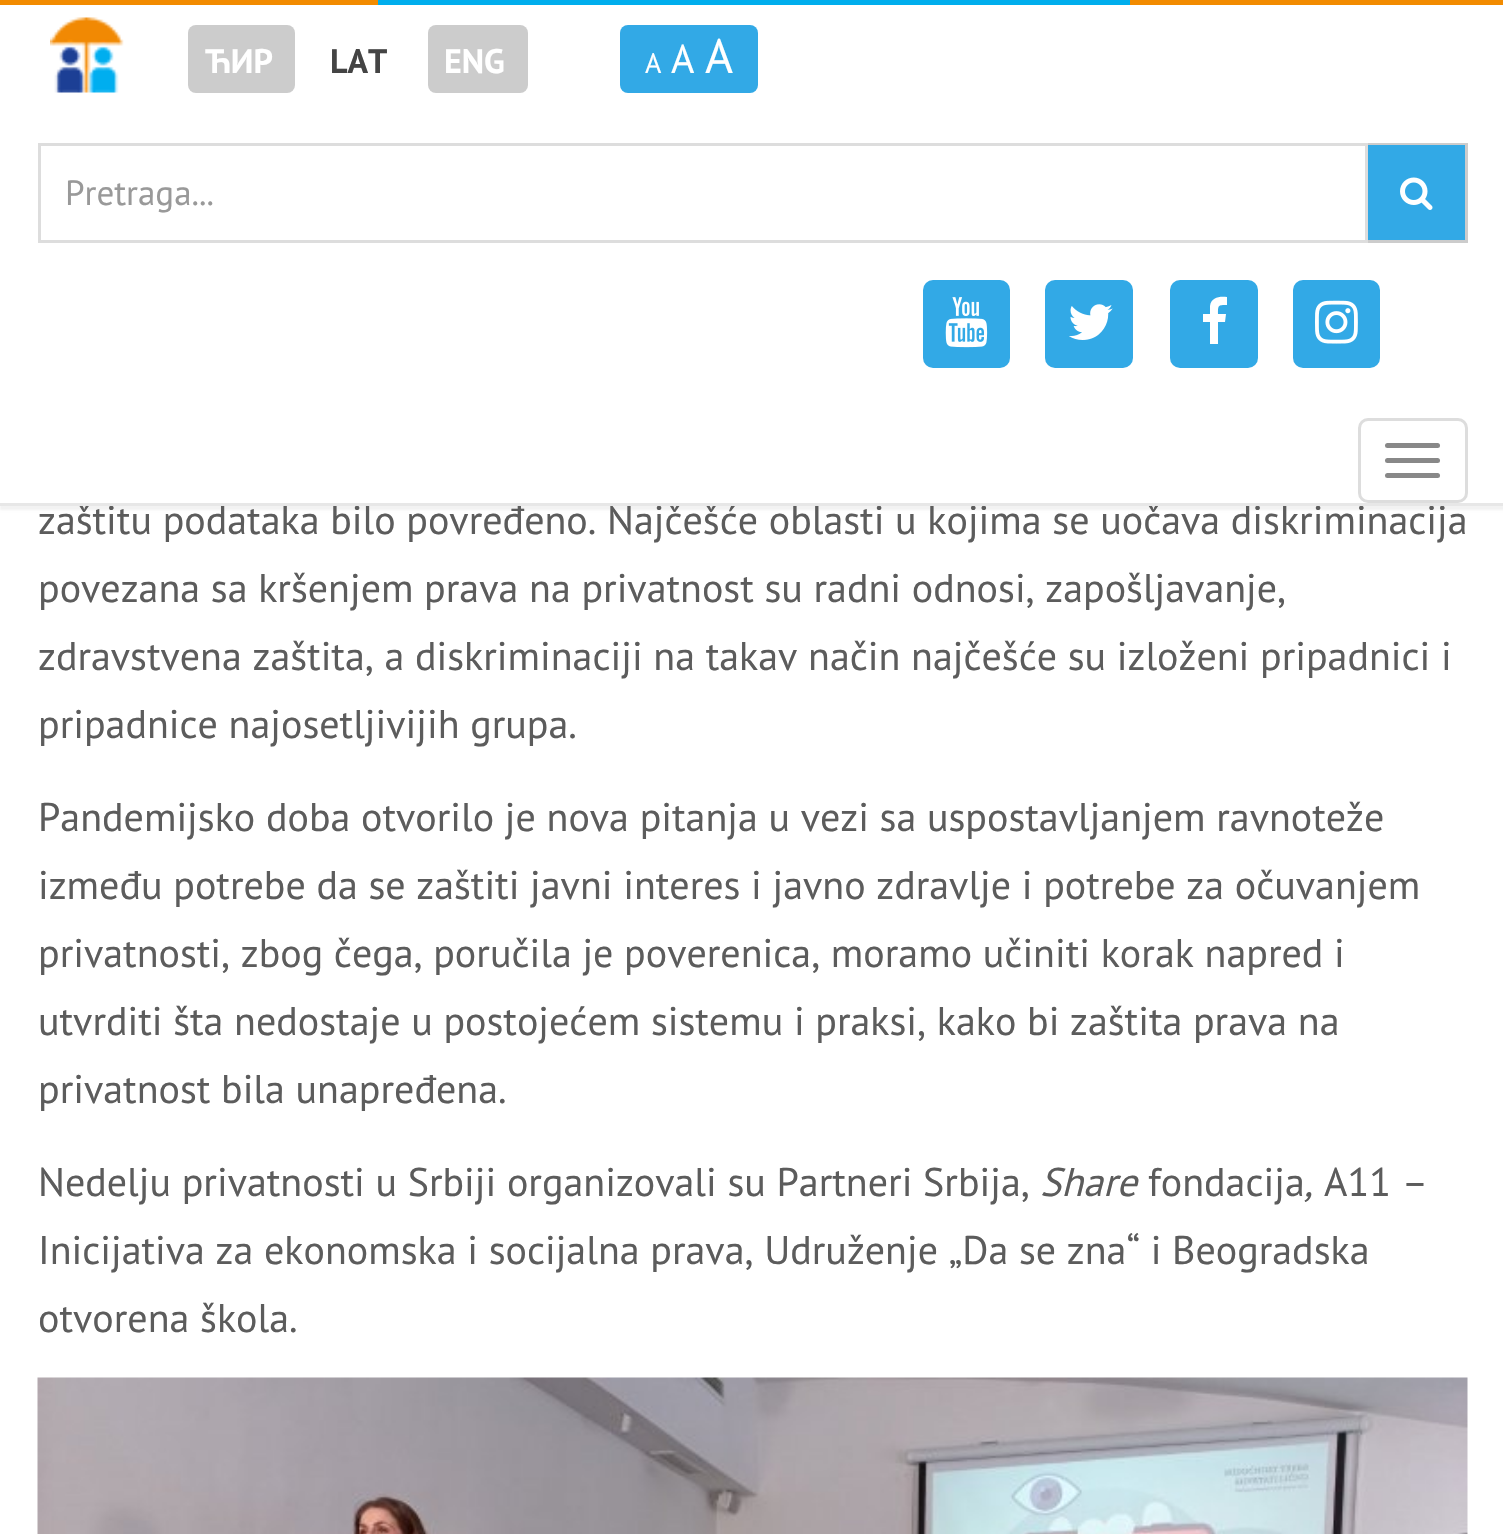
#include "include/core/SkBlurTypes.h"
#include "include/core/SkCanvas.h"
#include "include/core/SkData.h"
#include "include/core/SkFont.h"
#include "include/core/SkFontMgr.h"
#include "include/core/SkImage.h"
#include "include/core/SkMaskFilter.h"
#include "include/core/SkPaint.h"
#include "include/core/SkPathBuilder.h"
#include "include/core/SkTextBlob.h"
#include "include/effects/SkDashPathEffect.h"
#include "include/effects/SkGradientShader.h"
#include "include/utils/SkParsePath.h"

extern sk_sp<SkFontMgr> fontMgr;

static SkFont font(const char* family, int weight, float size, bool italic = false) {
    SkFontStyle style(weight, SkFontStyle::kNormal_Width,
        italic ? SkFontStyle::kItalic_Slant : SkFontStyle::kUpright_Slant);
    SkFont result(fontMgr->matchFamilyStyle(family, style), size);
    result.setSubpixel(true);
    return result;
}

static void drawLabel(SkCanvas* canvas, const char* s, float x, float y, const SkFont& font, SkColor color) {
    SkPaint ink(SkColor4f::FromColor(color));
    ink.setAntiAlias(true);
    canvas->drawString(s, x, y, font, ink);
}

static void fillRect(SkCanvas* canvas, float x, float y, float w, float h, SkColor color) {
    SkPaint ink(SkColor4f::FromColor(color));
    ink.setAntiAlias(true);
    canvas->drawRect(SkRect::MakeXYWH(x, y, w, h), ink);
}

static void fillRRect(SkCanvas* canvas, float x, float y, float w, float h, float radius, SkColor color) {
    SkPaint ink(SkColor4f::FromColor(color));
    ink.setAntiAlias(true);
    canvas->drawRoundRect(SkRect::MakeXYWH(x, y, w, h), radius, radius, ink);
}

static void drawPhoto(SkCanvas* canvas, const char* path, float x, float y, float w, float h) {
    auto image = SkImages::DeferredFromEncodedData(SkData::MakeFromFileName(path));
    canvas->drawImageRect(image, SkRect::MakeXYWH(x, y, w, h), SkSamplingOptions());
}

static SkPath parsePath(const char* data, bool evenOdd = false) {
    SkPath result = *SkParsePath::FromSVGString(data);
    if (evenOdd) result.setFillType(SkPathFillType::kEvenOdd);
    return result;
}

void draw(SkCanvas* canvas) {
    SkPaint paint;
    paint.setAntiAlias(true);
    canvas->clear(0xFFFFFFFF);
    paint.setColor(0x0D000000);
    paint.setMaskFilter(SkMaskFilter::MakeBlur(kNormal_SkBlurStyle, 1));
    canvas->drawRect(SkRect::MakeXYWH(0, 5, 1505, 505), paint);
    paint.setMaskFilter(nullptr);
    fillRect(canvas, 0, 5, 1503, 498, 0xFFFFFFFF);
    SkFont font1 = font("PT Sans", 400, 40);
    drawLabel(canvas, "zaštitu podataka bilo povređeno. Najčešće oblasti u kojima se uočava diskriminacija", 38, 534, font1, 0xFF5C5C5C);
    fillRect(canvas, 0, 503, 1503, 3, 0xFFE7E7E7);
    fillRect(canvas, 0, 0, 378, 5, 0xFFF28B00);
    fillRect(canvas, 378, 0, 752, 5, 0xFF00AEED);
    fillRect(canvas, 1130, 0, 373, 5, 0xFFF28B00);
    drawPhoto(canvas, "assets/img1.png", 50, 17, 74, 76);
    fillRRect(canvas, 188, 25, 107, 68, 8, 0xFFCCCCCC);
    SkFont font2 = font("PT Sans", 700, 34);
    drawLabel(canvas, "ЋИР", 205, 73, font2, 0xFFFFFFFF);
    drawLabel(canvas, "LAT", 330, 73, font2, 0xFF444444);
    fillRRect(canvas, 428, 25, 100, 68, 8, 0xFFCCCCCC);
    drawLabel(canvas, "ENG", 444, 73, font2, 0xFFFFFFFF);
    fillRRect(canvas, 620, 25, 138, 68, 8, 0xFF32A9E6);
    SkFont font3 = font("PT Sans", 400, 28);
    drawLabel(canvas, "A", 645, 73, font3, 0xFFFFFFFF);
    drawLabel(canvas, "A", 671, 73, font1, 0xFFFFFFFF);
    SkFont font4 = font("PT Sans", 400, 48);
    drawLabel(canvas, "A", 705, 73, font4, 0xFFFFFFFF);
    paint.setStroke(true);
    paint.setStrokeWidth(3);
    paint.setColor(0xFFDDDDDD);
    canvas->drawRect(SkRect::MakeXYWH(39.5f, 144.5f, 1327, 97), paint);
    SkFont font5 = font("PT Sans", 400, 35);
    drawLabel(canvas, "Pretraga...", 65, 205, font5, 0xFF999999);
    fillRect(canvas, 1368, 143, 100, 2, 0xFFCCCCCC);
    fillRect(canvas, 1465, 143, 3, 100, 0xFFCCCCCC);
    fillRect(canvas, 1368, 240, 100, 3, 0xFFCCCCCC);
    fillRect(canvas, 1368, 145, 97, 95, 0xFF32A9E6);
    drawPhoto(canvas, "assets/img2.png", 1400, 177, 33, 33);
    fillRRect(canvas, 923, 280, 87, 88, 10, 0xFF32A9E6);
    drawPhoto(canvas, "assets/img3.png", 945, 297, 43, 51);
    fillRRect(canvas, 1045, 280, 88, 88, 10, 0xFF32A9E6);
    drawPhoto(canvas, "assets/img4.png", 1069, 304, 44, 36);
    fillRRect(canvas, 1170, 280, 88, 88, 10, 0xFF32A9E6);
    paint.setStroke(false);
    paint.setColor(0xFFFFFFFF);
    canvas->drawPath(parsePath("M1227 297V305C1218 305 1218 305 1218 314H1226L1225 322H1218V344H1210V322H1203V314H1210V306C1211 297 1220 296 1227 297Z"), paint);
    fillRRect(canvas, 1293, 280, 87, 88, 10, 0xFF32A9E6);
    drawPhoto(canvas, "assets/img5.png", 1315, 300, 43, 44);
    paint.setStroke(true);
    paint.setColor(0xFFDDDDDD);
    canvas->drawRoundRect(SkRect::MakeXYWH(1359.5f, 419.5f, 107, 82), 8.5f, 8.5f, paint);
    fillRRect(canvas, 1385, 443, 55, 5, 2.5f, 0xFF888888);
    fillRRect(canvas, 1385, 458, 55, 5, 2.5f, 0xFF888888);
    fillRRect(canvas, 1385, 473, 55, 5, 2.5f, 0xFF888888);
    drawLabel(canvas, "povezana sa kršenjem prava na privatnost su radni odnosi, zapošljavanje,", 38, 602, font1, 0xFF5C5C5C);
    drawLabel(canvas, "zdravstvena zaštita, a diskriminaciji na takav način najčešće su izloženi pripadnici i", 38, 670, font1, 0xFF5C5C5C);
    drawLabel(canvas, "pripadnice najosetljivijih grupa.", 38, 738, font1, 0xFF5C5C5C);
    drawLabel(canvas, "Pandemijsko doba otvorilo je nova pitanja u vezi sa uspostavljanjem ravnoteže", 38, 831, font1, 0xFF5C5C5C);
    drawLabel(canvas, "između potrebe da se zaštiti javni interes i javno zdravlje i potrebe za očuvanjem", 38, 899, font1, 0xFF5C5C5C);
    drawLabel(canvas, "privatnosti, zbog čega, poručila je poverenica, moramo učiniti korak napred i", 38, 967, font1, 0xFF5C5C5C);
    drawLabel(canvas, "utvrditi šta nedostaje u postojećem sistemu i praksi, kako bi zaštita prava na", 38, 1035, font1, 0xFF5C5C5C);
    drawLabel(canvas, "privatnost bila unapređena.", 38, 1103, font1, 0xFF5C5C5C);
    drawLabel(canvas, "Nedelju privatnosti u Srbiji organizovali su Partneri Srbija,", 38, 1196, font1, 0xFF5C5C5C);
    SkFont font6 = font("PT Sans", 400, 40, true);
    drawLabel(canvas, "Share", 1040, 1196, font6, 0xFF5C5C5C);
    drawLabel(canvas, "fondacija", 1148, 1196, font1, 0xFF5C5C5C);
    drawLabel(canvas, "A11 –", 1324, 1196, font1, 0xFF5C5C5C);
    drawLabel(canvas, ",", 1304, 1196, font6, 0xFF5C5C5C);
    drawLabel(canvas, "Inicijativa za ekonomska i socijalna prava, Udruženje „Da se zna“ i Beogradska", 38, 1264, font1, 0xFF5C5C5C);
    drawLabel(canvas, "otvorena škola.", 38, 1332, font1, 0xFF5C5C5C);
    drawPhoto(canvas, "assets/img6.png", 37, 1377, 1431, 157);
}
